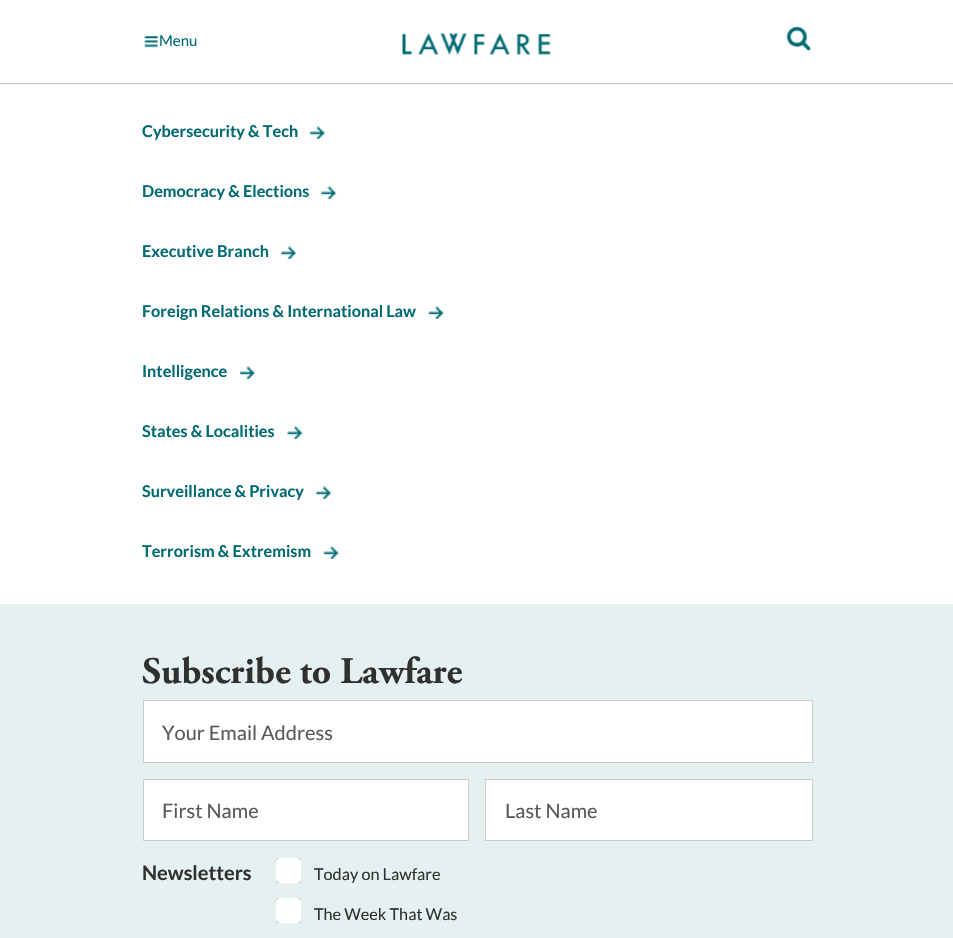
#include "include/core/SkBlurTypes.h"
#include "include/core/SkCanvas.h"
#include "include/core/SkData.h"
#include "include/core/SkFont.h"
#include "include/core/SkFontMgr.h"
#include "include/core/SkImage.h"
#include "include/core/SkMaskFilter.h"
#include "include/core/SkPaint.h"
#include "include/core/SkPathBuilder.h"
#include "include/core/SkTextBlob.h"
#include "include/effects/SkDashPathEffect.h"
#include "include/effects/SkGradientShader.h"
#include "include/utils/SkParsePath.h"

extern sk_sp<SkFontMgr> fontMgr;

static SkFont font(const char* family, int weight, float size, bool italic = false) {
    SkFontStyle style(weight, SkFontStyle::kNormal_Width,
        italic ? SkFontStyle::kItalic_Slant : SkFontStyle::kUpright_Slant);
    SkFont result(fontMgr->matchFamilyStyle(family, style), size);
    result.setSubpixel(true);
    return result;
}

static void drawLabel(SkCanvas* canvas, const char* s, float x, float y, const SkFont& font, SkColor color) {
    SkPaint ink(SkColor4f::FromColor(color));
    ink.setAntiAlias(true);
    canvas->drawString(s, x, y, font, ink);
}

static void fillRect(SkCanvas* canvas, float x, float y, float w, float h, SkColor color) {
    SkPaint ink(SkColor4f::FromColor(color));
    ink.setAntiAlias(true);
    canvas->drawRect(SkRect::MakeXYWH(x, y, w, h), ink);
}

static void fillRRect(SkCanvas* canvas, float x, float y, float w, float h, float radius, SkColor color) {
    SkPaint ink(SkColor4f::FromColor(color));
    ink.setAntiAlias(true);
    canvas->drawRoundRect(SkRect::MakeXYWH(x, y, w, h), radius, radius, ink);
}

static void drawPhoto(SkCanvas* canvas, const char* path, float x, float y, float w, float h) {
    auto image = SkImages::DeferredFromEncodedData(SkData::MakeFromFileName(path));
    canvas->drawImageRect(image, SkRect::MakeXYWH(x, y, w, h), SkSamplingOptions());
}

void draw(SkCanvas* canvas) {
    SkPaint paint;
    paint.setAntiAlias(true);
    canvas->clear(0xFFFFFFFF);
    paint.setColor(0x33000000);
    paint.setMaskFilter(SkMaskFilter::MakeBlur(kNormal_SkBlurStyle, 0.5f));
    canvas->drawRect(SkRect::MakeXYWH(0, 1, 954, 83), paint);
    paint.setMaskFilter(nullptr);
    fillRect(canvas, 0, 0, 953, 83, 0xFFFFFFFF);
    drawPhoto(canvas, "assets/img1.png", 144, 36, 15, 12);
    SkFont font1 = font("Lato", 400, 15);
    drawLabel(canvas, "Menu", 159, 46, font1, 0xFF006A72);
    drawPhoto(canvas, "assets/img2.png", 402, 32, 149, 23);
    drawPhoto(canvas, "assets/img3.png", 786, 26, 25, 25);
    SkFont font2 = font("Lato", 700, 16.25f);
    drawLabel(canvas, "Cybersecurity & Tech", 142, 137, font2, 0xFF006A72);
    drawPhoto(canvas, "assets/img4.png", 310, 126, 15, 13);
    drawLabel(canvas, "Democracy & Elections", 142, 197, font2, 0xFF006A72);
    drawPhoto(canvas, "assets/img5.png", 321, 186, 16, 13);
    drawLabel(canvas, "Executive Branch", 142, 257, font2, 0xFF006A72);
    drawPhoto(canvas, "assets/img5.png", 281, 246, 16, 13);
    drawLabel(canvas, "Foreign Relations & International Law", 142, 317, font2, 0xFF006A72);
    drawPhoto(canvas, "assets/img6.png", 428, 306, 16, 13);
    drawLabel(canvas, "Intelligence", 142, 377, font2, 0xFF006A72);
    drawPhoto(canvas, "assets/img4.png", 240, 366, 15, 13);
    drawLabel(canvas, "States & Localities", 142, 437, font2, 0xFF006A72);
    drawPhoto(canvas, "assets/img7.png", 287, 426, 16, 13);
    drawLabel(canvas, "Surveillance & Privacy", 142, 497, font2, 0xFF006A72);
    drawPhoto(canvas, "assets/img5.png", 316, 486, 16, 13);
    drawLabel(canvas, "Terrorism & Extremism", 142, 557, font2, 0xFF006A72);
    drawPhoto(canvas, "assets/img6.png", 323, 546, 16, 13);
    fillRect(canvas, 0, 604, 953, 334, 0xFFE5F0F1);
    SkFont font3 = font("Adobe Garamond", 700, 37.5f);
    drawLabel(canvas, "Subscribe to Lawfare", 142, 683, font3, 0xFF303030);
    paint.setColor(0xFFFFFFFF);
    canvas->drawRect(SkRect::MakeXYWH(143.5f, 700.5f, 669, 62), paint);
    paint.setStroke(true);
    paint.setStrokeWidth(1);
    paint.setColor(0xFFCCCCCC);
    canvas->drawRect(SkRect::MakeXYWH(143.5f, 700.5f, 669, 62), paint);
    SkFont font4 = font("Lato", 400, 20);
    drawLabel(canvas, "Your Email Address", 162, 740, font4, 0xFF595959);
    paint.setStroke(false);
    paint.setColor(0xFFFFFFFF);
    canvas->drawRect(SkRect::MakeXYWH(143.5f, 779.5f, 325, 61), paint);
    paint.setStroke(true);
    paint.setColor(0xFFCCCCCC);
    canvas->drawRect(SkRect::MakeXYWH(143.5f, 779.5f, 325, 61), paint);
    drawLabel(canvas, "First Name", 162, 818, font4, 0xFF595959);
    paint.setStroke(false);
    paint.setColor(0xFFFFFFFF);
    canvas->drawRect(SkRect::MakeXYWH(485.5f, 779.5f, 327, 61), paint);
    paint.setStroke(true);
    paint.setColor(0xFFCCCCCC);
    canvas->drawRect(SkRect::MakeXYWH(485.5f, 779.5f, 327, 61), paint);
    drawLabel(canvas, "Last Name", 505, 818, font4, 0xFF595959);
    SkFont font5 = font("Lato", 700, 20);
    drawLabel(canvas, "Newsletters", 142, 880, font5, 0xFF303030);
    paint.setColor(0xFF767676);
    canvas->drawRoundRect(SkRect::MakeXYWH(276.5f, 858.5f, 24, 24), 2, 2, paint);
    fillRRect(canvas, 276, 858, 25, 25, 4, 0xFFFFFFFF);
    SkFont font6 = font("Lato", 400, 16.25f);
    drawLabel(canvas, "Today on Lawfare", 314, 880, font6, 0xFF303030);
    canvas->drawRoundRect(SkRect::MakeXYWH(276.5f, 898.5f, 24, 24), 2, 2, paint);
    fillRRect(canvas, 276, 898, 25, 25, 4, 0xFFFFFFFF);
    drawLabel(canvas, "The Week That Was", 314, 920, font6, 0xFF303030);
}
